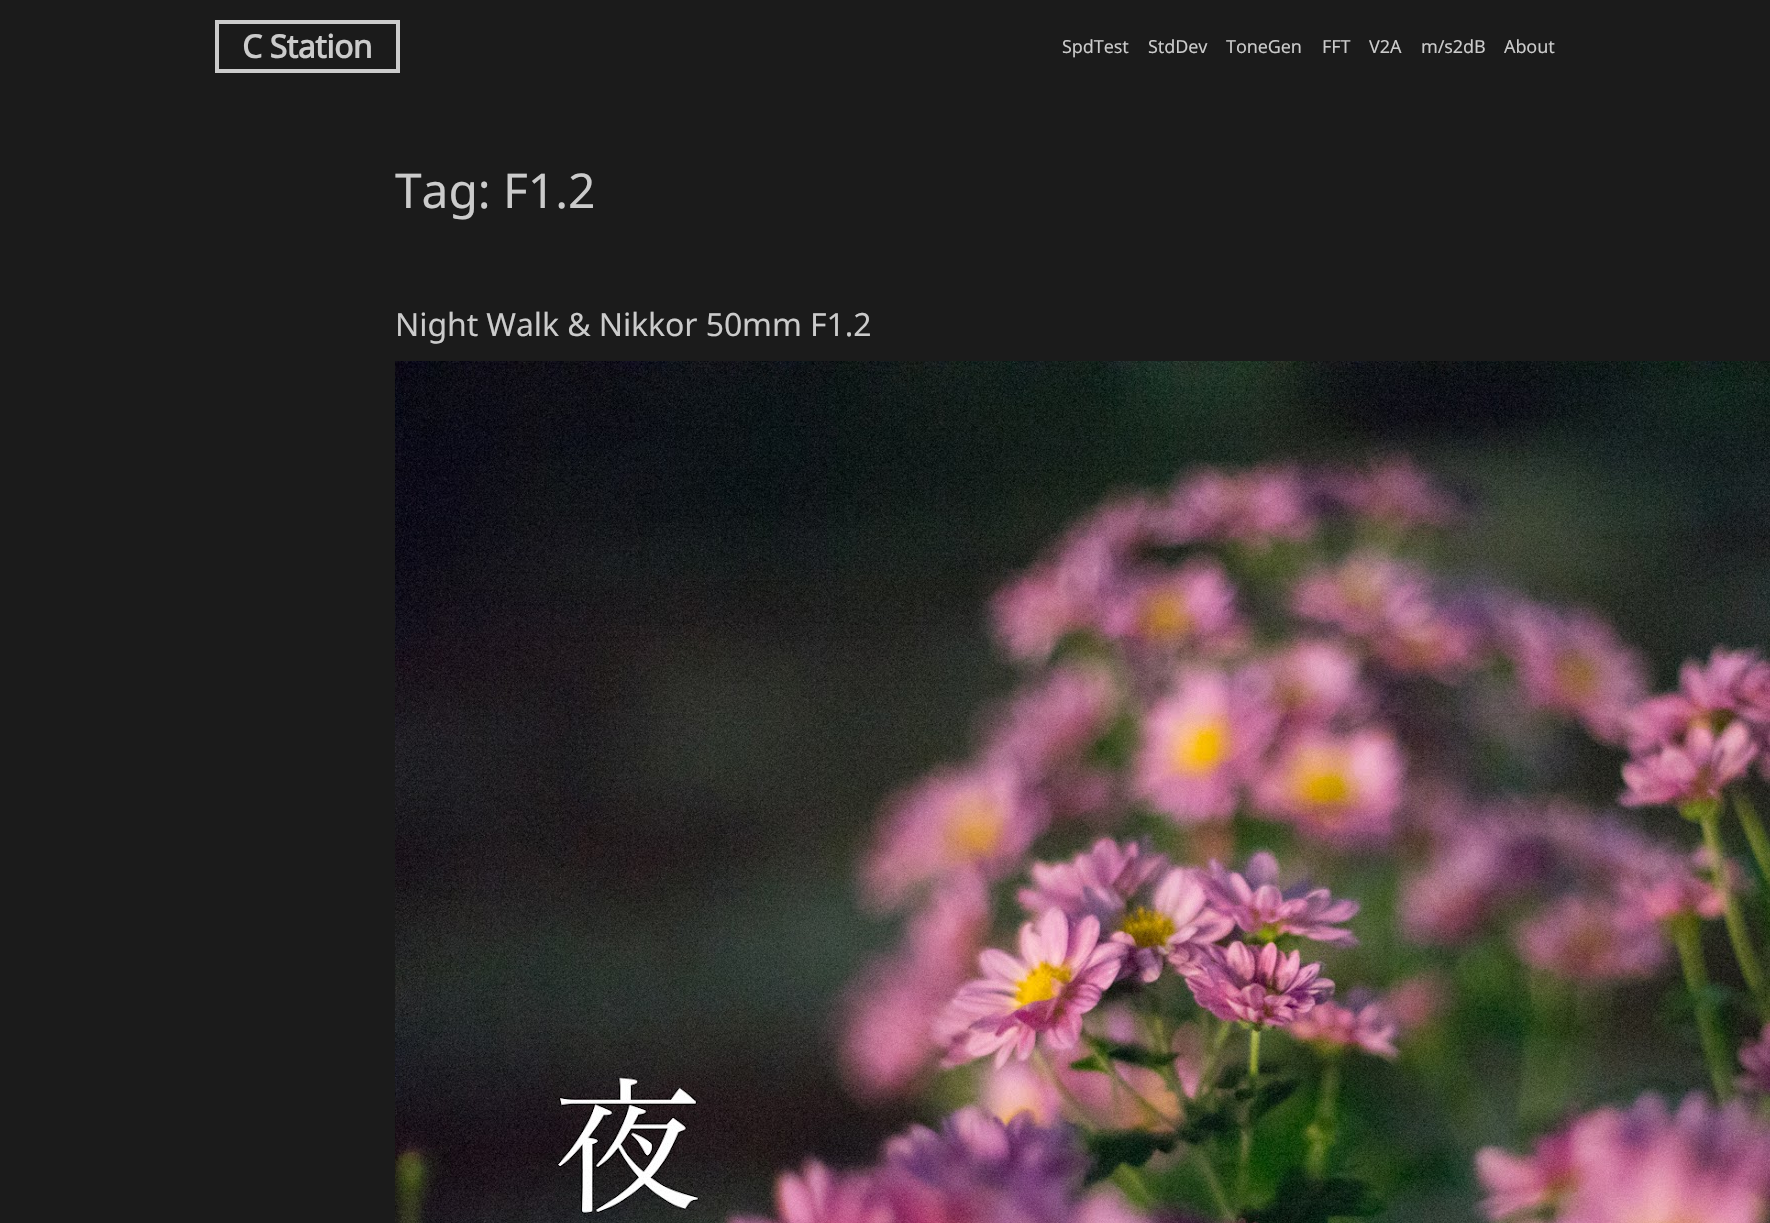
#include "include/core/SkBlurTypes.h"
#include "include/core/SkCanvas.h"
#include "include/core/SkData.h"
#include "include/core/SkFont.h"
#include "include/core/SkFontMgr.h"
#include "include/core/SkImage.h"
#include "include/core/SkMaskFilter.h"
#include "include/core/SkPaint.h"
#include "include/core/SkPathBuilder.h"
#include "include/core/SkTextBlob.h"
#include "include/effects/SkDashPathEffect.h"
#include "include/effects/SkGradientShader.h"
#include "include/utils/SkParsePath.h"

extern sk_sp<SkFontMgr> fontMgr;

static SkFont font(const char* family, int weight, float size, bool italic = false) {
    SkFontStyle style(weight, SkFontStyle::kNormal_Width,
        italic ? SkFontStyle::kItalic_Slant : SkFontStyle::kUpright_Slant);
    SkFont result(fontMgr->matchFamilyStyle(family, style), size);
    result.setSubpixel(true);
    return result;
}

static void drawTracked(SkCanvas* canvas, const char* s, float x, float y, const SkFont& font, const SkPaint& ink, float letter, float word) {
    std::vector<SkGlyphID> glyphs(font.countText(s, strlen(s), SkTextEncoding::kUTF8));
    std::vector<float> xs(glyphs.size());
    font.textToGlyphs(s, strlen(s), SkTextEncoding::kUTF8, glyphs);
    font.getXPos(glyphs, xs, x);
    float extra = 0;
    for (size_t i = 0; i < glyphs.size(); i++) {
        xs[i] += extra;
        extra += letter + word * (glyphs[i] == font.unicharToGlyph(' '));
    }
    canvas->drawTextBlob(SkTextBlob::MakeFromPosHGlyphs(glyphs, xs, y, font), 0, 0, ink);
}

static void drawPhoto(SkCanvas* canvas, const char* path, float x, float y, float w, float h) {
    auto image = SkImages::DeferredFromEncodedData(SkData::MakeFromFileName(path));
    canvas->drawImageRect(image, SkRect::MakeXYWH(x, y, w, h), SkSamplingOptions());
}

void draw(SkCanvas* canvas) {
    SkPaint paint;
    paint.setAntiAlias(true);
    canvas->clear(0xFF1B1B1B);
    paint.setStroke(true);
    paint.setStrokeWidth(4);
    paint.setColor(0xFFCBCBCB);
    canvas->drawRect(SkRect::MakeXYWH(217, 22, 181, 49), paint);
    SkFont font1 = font("Noto Sans", 700, 32);
    paint.setStroke(false);
    drawTracked(canvas, "C Station", 242, 58, font1, paint, -0.5f, 0);
    SkFont font2 = font("Noto Sans", 400, 18);
    drawTracked(canvas, "SpdTest", 1062, 53, font2, paint, -0.1f, 0);
    drawTracked(canvas, "StdDev", 1148, 53, font2, paint, -0.1f, 0);
    drawTracked(canvas, "ToneGen", 1226, 53, font2, paint, -0.1f, 0);
    drawTracked(canvas, "FFT", 1322, 53, font2, paint, -0.1f, 0);
    drawTracked(canvas, "V2A", 1369, 53, font2, paint, -0.1f, 0);
    drawTracked(canvas, "m/s2dB", 1421, 53, font2, paint, -0.1f, 0);
    drawTracked(canvas, "About", 1504, 53, font2, paint, -0.1f, 0);
    SkFont font3 = font("Noto Sans", 400, 48);
    drawTracked(canvas, "Tag: F1.2", 395, 208, font3, paint, -0.1f, 0);
    SkFont font4 = font("Noto Sans", 400, 32);
    drawTracked(canvas, "Night Walk & Nikkor 50mm F1.2", 395, 336, font4, paint, -0.1f, 0);
    drawPhoto(canvas, "assets/img1.png", 395, 361, 1375, 862);
}
